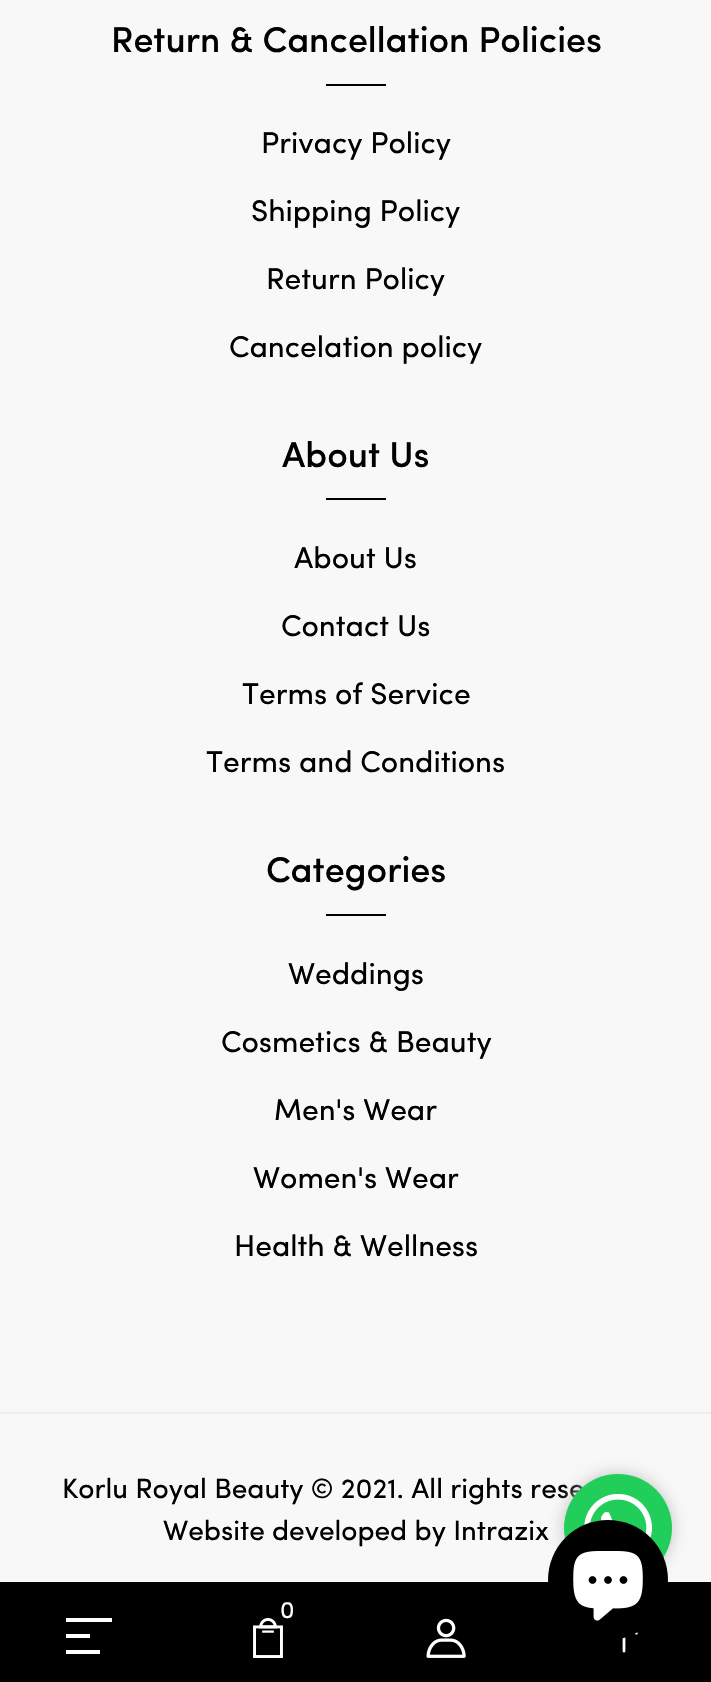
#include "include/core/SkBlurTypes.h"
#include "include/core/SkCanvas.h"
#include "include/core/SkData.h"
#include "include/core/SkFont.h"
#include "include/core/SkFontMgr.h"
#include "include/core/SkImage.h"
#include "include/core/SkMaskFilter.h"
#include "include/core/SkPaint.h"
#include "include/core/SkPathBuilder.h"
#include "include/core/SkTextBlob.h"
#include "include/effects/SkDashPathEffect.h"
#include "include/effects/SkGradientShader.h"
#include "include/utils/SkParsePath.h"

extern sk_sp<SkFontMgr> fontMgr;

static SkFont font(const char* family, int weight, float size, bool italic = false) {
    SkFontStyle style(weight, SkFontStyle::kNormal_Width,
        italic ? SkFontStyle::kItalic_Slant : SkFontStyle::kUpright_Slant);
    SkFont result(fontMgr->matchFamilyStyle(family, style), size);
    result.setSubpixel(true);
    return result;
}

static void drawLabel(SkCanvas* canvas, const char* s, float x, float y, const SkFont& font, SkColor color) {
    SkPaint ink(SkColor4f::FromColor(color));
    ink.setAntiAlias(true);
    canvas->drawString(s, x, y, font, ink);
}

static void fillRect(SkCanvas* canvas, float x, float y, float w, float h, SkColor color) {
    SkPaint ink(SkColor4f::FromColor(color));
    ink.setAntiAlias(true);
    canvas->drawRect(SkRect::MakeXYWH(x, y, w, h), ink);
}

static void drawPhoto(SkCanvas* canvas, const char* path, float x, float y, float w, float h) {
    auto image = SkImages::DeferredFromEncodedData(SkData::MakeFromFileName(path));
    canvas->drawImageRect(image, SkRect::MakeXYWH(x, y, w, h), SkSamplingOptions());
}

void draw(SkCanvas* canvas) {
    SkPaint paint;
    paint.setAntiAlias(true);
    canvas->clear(0xFFF8F8F8);
    SkFont font1 = font("Sofia", 500, 36);
    drawLabel(canvas, "Return & Cancellation Policies", 111, 52, font1, 0xFF000000);
    fillRect(canvas, 326, 84, 60, 2, 0xFF000000);
    SkFont font2 = font("Sofia", 400, 30);
    drawLabel(canvas, "Privacy Policy", 261, 153, font2, 0xFF000000);
    drawLabel(canvas, "Shipping Policy", 251, 221, font2, 0xFF000000);
    drawLabel(canvas, "Return Policy", 266, 289, font2, 0xFF000000);
    drawLabel(canvas, "Cancelation policy", 229, 357, font2, 0xFF000000);
    drawLabel(canvas, "About Us", 282, 467, font1, 0xFF000000);
    fillRect(canvas, 326, 498, 60, 2, 0xFF000000);
    drawLabel(canvas, "About Us", 294, 568, font2, 0xFF000000);
    drawLabel(canvas, "Contact Us", 281, 636, font2, 0xFF000000);
    drawLabel(canvas, "Terms of Service", 242, 704, font2, 0xFF000000);
    drawLabel(canvas, "Terms and Conditions", 206, 772, font2, 0xFF000000);
    drawLabel(canvas, "Categories", 266, 882, font1, 0xFF000000);
    fillRect(canvas, 326, 914, 60, 2, 0xFF000000);
    drawLabel(canvas, "Weddings", 288, 984, font2, 0xFF000000);
    drawLabel(canvas, "Cosmetics & Beauty", 221, 1052, font2, 0xFF000000);
    drawLabel(canvas, "Men's Wear", 274, 1120, font2, 0xFF000000);
    drawLabel(canvas, "Women's Wear", 253, 1188, font2, 0xFF000000);
    drawLabel(canvas, "Health & Wellness", 234, 1256, font2, 0xFF000000);
    fillRect(canvas, 0, 1412, 711, 2, 0xFFEEEEEE);
    SkFont font3 = font("Sofia", 400, 28);
    drawLabel(canvas, "Korlu Royal Beauty © 2021. All rights rese", 62, 1498, font3, 0xFF000000);
    drawLabel(canvas, "Website developed by Intrazix", 163, 1540, font3, 0xFF000000);
    fillRect(canvas, 0, 1582, 711, 100, 0xFF000000);
    paint.setColor(0xFFC2C2C2);
    paint.setMaskFilter(SkMaskFilter::MakeBlur(kNormal_SkBlurStyle, 8));
    canvas->drawRoundRect(SkRect::MakeXYWH(564, 1474, 108, 108), 54, 54, paint);
    paint.setMaskFilter(nullptr);
    paint.setColor(0xFF22CE5A);
    canvas->drawCircle(618, 1528, 54, paint);
    drawPhoto(canvas, "assets/img1.png", 584, 1494, 68, 45);
    drawPhoto(canvas, "assets/img2.png", 253, 1618, 30, 40);
    SkFont font4 = font("Sofia", 400, 24);
    drawLabel(canvas, "0", 280, 1618, font4, 0xFFFFFFFF);
    fillRect(canvas, 66, 1618, 46, 4, 0xFFFFFFFF);
    fillRect(canvas, 66, 1634, 24, 4, 0xFFFFFFFF);
    fillRect(canvas, 66, 1650, 34, 4, 0xFFFFFFFF);
    drawPhoto(canvas, "assets/img3.png", 426, 1618, 40, 40);
    drawPhoto(canvas, "assets/img4.png", 622, 1632, 16, 21);
    paint.setColor(0xFF000000);
    canvas->drawCircle(608, 1580, 60, paint);
    drawPhoto(canvas, "assets/img5.png", 573, 1551, 70, 70);
}
